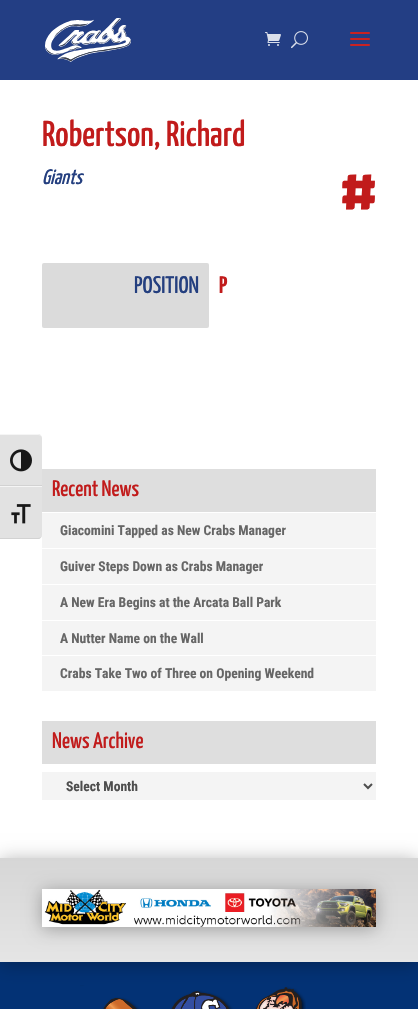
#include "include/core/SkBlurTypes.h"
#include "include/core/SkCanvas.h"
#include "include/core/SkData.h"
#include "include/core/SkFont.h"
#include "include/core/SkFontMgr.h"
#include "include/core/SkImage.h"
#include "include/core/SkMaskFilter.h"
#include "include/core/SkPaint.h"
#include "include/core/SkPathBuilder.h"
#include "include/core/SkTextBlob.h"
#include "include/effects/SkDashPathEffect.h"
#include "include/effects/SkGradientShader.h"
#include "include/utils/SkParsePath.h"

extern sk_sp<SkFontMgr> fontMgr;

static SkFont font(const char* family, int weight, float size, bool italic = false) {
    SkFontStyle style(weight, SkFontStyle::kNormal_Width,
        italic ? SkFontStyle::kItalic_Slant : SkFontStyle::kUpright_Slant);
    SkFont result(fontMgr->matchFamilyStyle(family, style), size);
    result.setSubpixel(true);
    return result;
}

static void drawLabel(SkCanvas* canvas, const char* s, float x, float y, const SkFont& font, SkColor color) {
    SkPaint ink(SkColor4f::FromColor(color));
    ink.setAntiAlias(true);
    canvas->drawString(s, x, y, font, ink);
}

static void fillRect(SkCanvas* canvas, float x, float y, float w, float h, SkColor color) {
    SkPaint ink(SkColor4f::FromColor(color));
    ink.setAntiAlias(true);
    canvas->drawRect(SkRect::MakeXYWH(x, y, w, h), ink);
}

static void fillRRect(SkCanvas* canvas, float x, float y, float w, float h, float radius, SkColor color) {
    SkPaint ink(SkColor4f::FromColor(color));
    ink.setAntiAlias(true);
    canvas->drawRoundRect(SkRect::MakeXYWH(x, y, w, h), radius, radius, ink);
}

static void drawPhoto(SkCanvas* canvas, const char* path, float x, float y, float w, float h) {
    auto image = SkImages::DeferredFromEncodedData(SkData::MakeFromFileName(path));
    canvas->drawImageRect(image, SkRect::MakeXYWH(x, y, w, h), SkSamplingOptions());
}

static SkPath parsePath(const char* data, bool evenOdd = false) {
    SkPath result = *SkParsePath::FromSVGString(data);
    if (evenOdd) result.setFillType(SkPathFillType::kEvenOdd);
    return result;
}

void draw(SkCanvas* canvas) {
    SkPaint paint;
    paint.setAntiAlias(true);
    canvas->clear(0xFFFFFFFF);
    paint.setColor(0xFFE2E2E2);
    canvas->drawPath(parsePath("M0 434H38C40 434 42 436 42 438V486H0Z"), paint);
    paint.setColor(0xFFF5F5F5);
    canvas->drawPath(parsePath("M0 434V435H38C40 435 42 436 42 438C42 436 40 434 38 434Z"), paint);
    fillRect(canvas, 0, 485, 42, 1, 0xFFD2D2D2);
    drawPhoto(canvas, "assets/img1.png", 10, 449, 22, 23);
    paint.setColor(0xFFE2E2E2);
    canvas->drawPath(parsePath("M0 486H42V535C42 537 40 539 38 539H0Z"), paint);
    fillRect(canvas, 0, 486, 42, 1, 0xFFF5F5F5);
    paint.setColor(0xFFD2D2D2);
    canvas->drawPath(parsePath("M0 538V539H38C40 539 42 537 42 535C42 537 40 538 38 538Z"), paint);
    drawPhoto(canvas, "assets/img2.png", 11, 504, 20, 20);
    fillRect(canvas, 0, 0, 418, 80, 0xFF233E84);
    drawPhoto(canvas, "assets/img3.png", 45, 18, 86, 44);
    drawPhoto(canvas, "assets/img4.png", 265, 32, 16, 14);
    drawPhoto(canvas, "assets/img5.png", 291, 31, 17, 18);
    drawPhoto(canvas, "assets/img6.png", 350, 32, 20, 14);
    SkFont font1 = font("Yanone Kaffeesatz", 200, 36);
    drawLabel(canvas, "Robertson, Richard", 42, 146, font1, 0xFFC11B1B);
    SkFont font2 = font("Yanone Kaffeesatz", 200, 21, true);
    drawLabel(canvas, "Giants", 42, 184, font2, 0xFF243F7F);
    SkFont font3 = font("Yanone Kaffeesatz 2", 200, 88);
    drawLabel(canvas, "#", 341, 219, font3, 0xFFC11B1B);
    fillRRect(canvas, 42, 263, 167, 65, 2, 0xFFDBDBDB);
    SkFont font4 = font("Yanone Kaffeesatz", 200, 24);
    drawLabel(canvas, "POSITION", 134, 293, font4, 0xFF243F7F);
    SkFont font5 = font("Yanone Kaffeesatz 2", 200, 24);
    drawLabel(canvas, "P", 219, 293, font5, 0xFFC11B1B);
    fillRect(canvas, 42, 469, 334, 43, 0xFFDEDEDE);
    SkFont font6 = font("Yanone Kaffeesatz", 200, 22.5f);
    drawLabel(canvas, "Recent News", 52, 496, font6, 0xFFC11B1B);
    fillRect(canvas, 42, 513, 334, 35, 0xFFF4F4F4);
    SkFont font7 = font("Roboto Condensed", 700, 13.6f);
    drawLabel(canvas, "Giacomini Tapped as New Crabs Manager", 60, 535, font7, 0xFF666666);
    fillRect(canvas, 42, 549, 334, 35, 0xFFF4F4F4);
    drawLabel(canvas, "Guiver Steps Down as Crabs Manager", 60, 571, font7, 0xFF666666);
    fillRect(canvas, 42, 585, 334, 35, 0xFFF4F4F4);
    drawLabel(canvas, "A New Era Begins at the Arcata Ball Park", 60, 607, font7, 0xFF666666);
    fillRect(canvas, 42, 621, 334, 34, 0xFFF4F4F4);
    drawLabel(canvas, "A Nutter Name on the Wall", 60, 643, font7, 0xFF666666);
    fillRect(canvas, 42, 656, 334, 35, 0xFFF4F4F4);
    drawLabel(canvas, "Crabs Take Two of Three on Opening Weekend", 60, 678, font7, 0xFF666666);
    fillRect(canvas, 42, 721, 334, 43, 0xFFDEDEDE);
    drawLabel(canvas, "News Archive", 52, 748, font6, 0xFFC11B1B);
    fillRect(canvas, 42, 772, 334, 28, 0xFFF4F4F4);
    paint.setStroke(true);
    paint.setStrokeWidth(2);
    paint.setColor(0xFF4E4E4E);
    canvas->drawPath(parsePath("M364 784L368 788L372 784"), paint);
    drawLabel(canvas, "Select Month", 66, 791, font7, 0xFF4E4E4E);
    fillRect(canvas, 0, 962, 418, 47, 0xFF033275);
    drawPhoto(canvas, "assets/img8.png", 80, 985, 226, 24);
    paint.setStroke(false);
    paint.setColor(0x4D000000);
    paint.setMaskFilter(SkMaskFilter::MakeBlur(kNormal_SkBlurStyle, 9));
    canvas->drawRect(SkRect::MakeXYWH(0, 860, 418, 104), paint);
    paint.setMaskFilter(nullptr);
    {
        const SkColor colors[] = {0xFFD6D6D6, 0xFFE5E5E5};
        const float stops[] = {0, 1};
        const SkPoint ends[] = {{209, 858}, {209, 962}};
        paint.setShader(SkGradientShader::MakeLinear(ends, colors, stops, 2, SkTileMode::kClamp));
        paint.setAlpha(255);
    }
    canvas->drawRect(SkRect::MakeXYWH(0, 858, 418, 104), paint);
    paint.setShader(nullptr);
    paint.setColor(0x4D000000);
    paint.setMaskFilter(SkMaskFilter::MakeBlur(kNormal_SkBlurStyle, 9));
    canvas->drawRect(SkRect::MakeXYWH(42, 891, 334, 38), paint);
    paint.setMaskFilter(nullptr);
    drawPhoto(canvas, "assets/img7.png", 42, 889, 334, 38);
}
